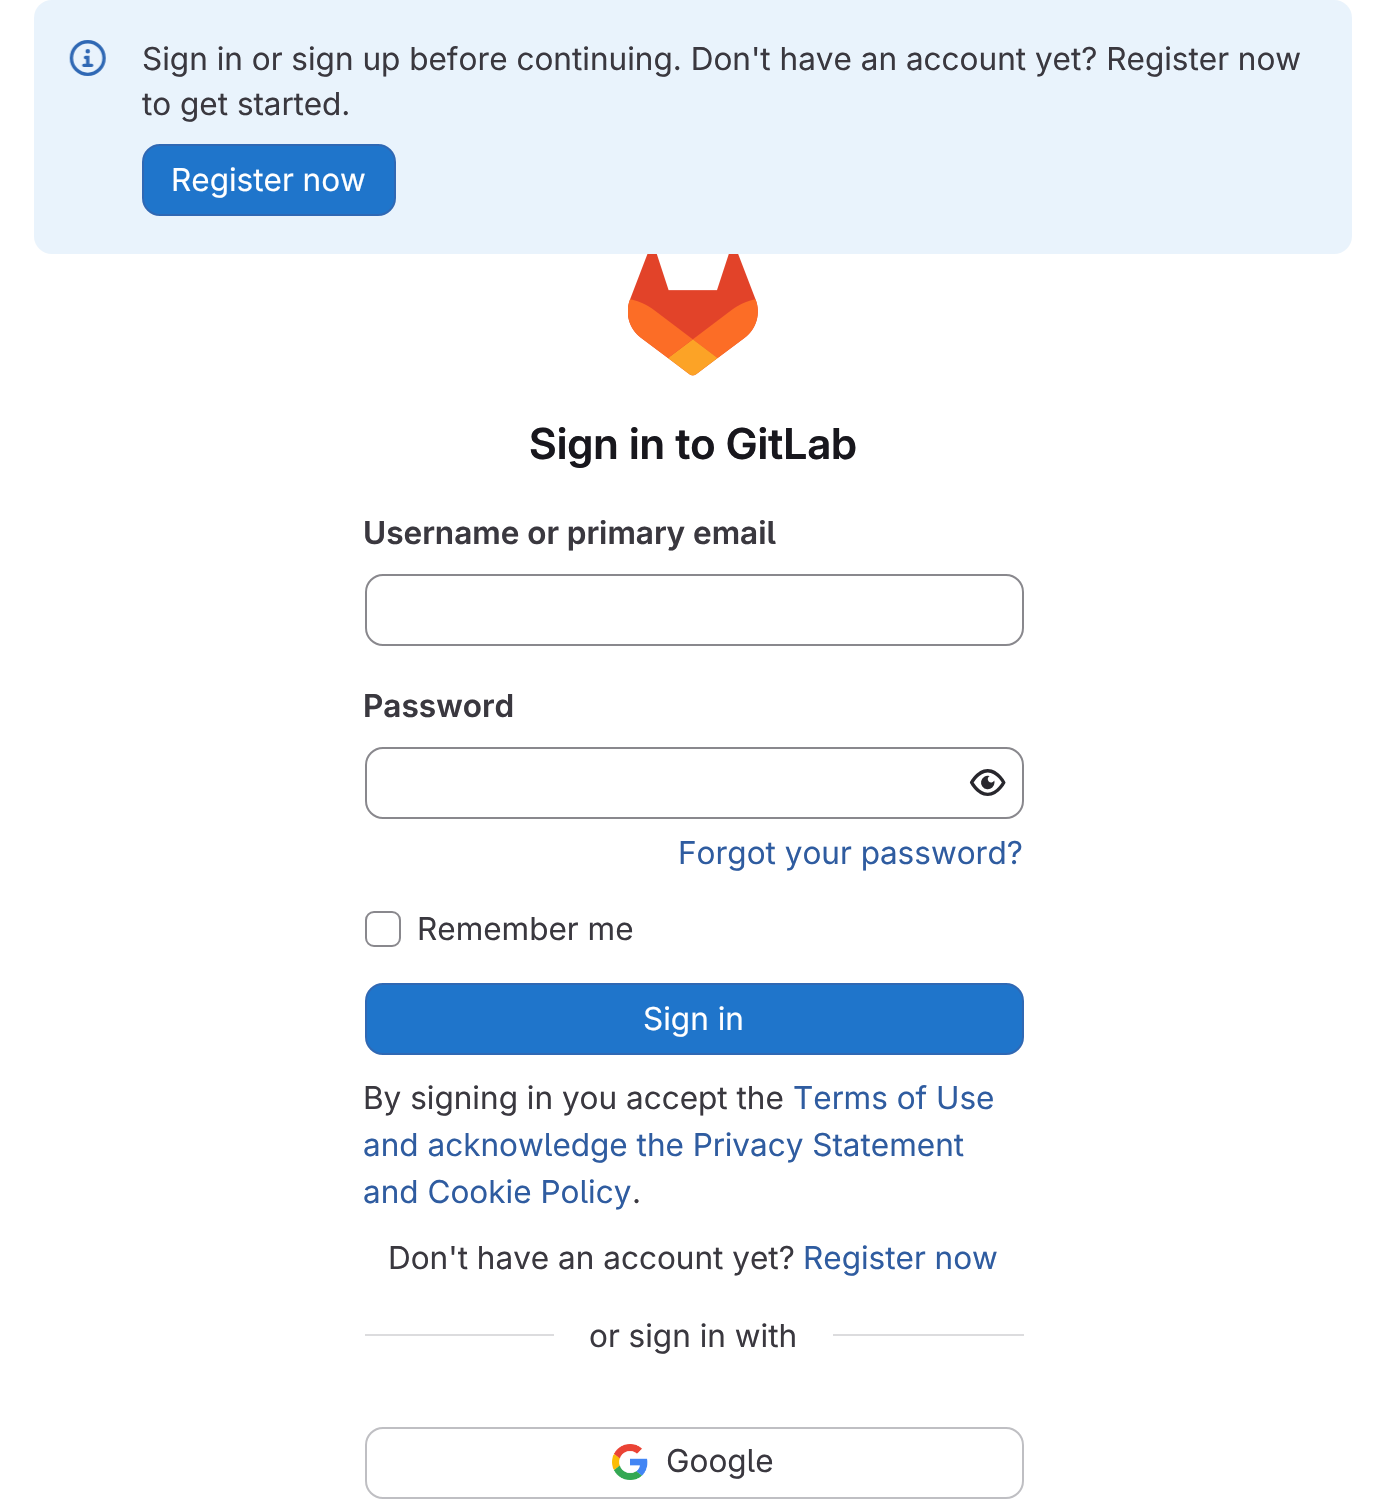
#include "include/core/SkBlurTypes.h"
#include "include/core/SkCanvas.h"
#include "include/core/SkData.h"
#include "include/core/SkFont.h"
#include "include/core/SkFontMgr.h"
#include "include/core/SkImage.h"
#include "include/core/SkMaskFilter.h"
#include "include/core/SkPaint.h"
#include "include/core/SkPathBuilder.h"
#include "include/core/SkTextBlob.h"
#include "include/effects/SkDashPathEffect.h"
#include "include/effects/SkGradientShader.h"
#include "include/utils/SkParsePath.h"

extern sk_sp<SkFontMgr> fontMgr;

static SkFont font(const char* family, int weight, float size, bool italic = false) {
    SkFontStyle style(weight, SkFontStyle::kNormal_Width,
        italic ? SkFontStyle::kItalic_Slant : SkFontStyle::kUpright_Slant);
    SkFont result(fontMgr->matchFamilyStyle(family, style), size);
    result.setSubpixel(true);
    return result;
}

static void drawLabel(SkCanvas* canvas, const char* s, float x, float y, const SkFont& font, SkColor color) {
    SkPaint ink(SkColor4f::FromColor(color));
    ink.setAntiAlias(true);
    canvas->drawString(s, x, y, font, ink);
}

static void fillRect(SkCanvas* canvas, float x, float y, float w, float h, SkColor color) {
    SkPaint ink(SkColor4f::FromColor(color));
    ink.setAntiAlias(true);
    canvas->drawRect(SkRect::MakeXYWH(x, y, w, h), ink);
}

static void fillRRect(SkCanvas* canvas, float x, float y, float w, float h, float radius, SkColor color) {
    SkPaint ink(SkColor4f::FromColor(color));
    ink.setAntiAlias(true);
    canvas->drawRoundRect(SkRect::MakeXYWH(x, y, w, h), radius, radius, ink);
}

static void drawPhoto(SkCanvas* canvas, const char* path, float x, float y, float w, float h) {
    auto image = SkImages::DeferredFromEncodedData(SkData::MakeFromFileName(path));
    canvas->drawImageRect(image, SkRect::MakeXYWH(x, y, w, h), SkSamplingOptions());
}

void draw(SkCanvas* canvas) {
    SkPaint paint;
    paint.setAntiAlias(true);
    canvas->clear(0xFFFFFFFF);
    fillRRect(canvas, 34, 0, 1318, 254, 18, 0xFFE9F3FC);
    drawPhoto(canvas, "assets/img1.png", 69, 40, 37, 36);
    SkFont font1 = font("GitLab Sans", 400, 31.5f);
    drawLabel(canvas, "Sign in or sign up before continuing. Don't have an account yet? Register now", 142, 70, font1, 0xFF3A383F);
    drawLabel(canvas, "to get started.", 142, 115, font1, 0xFF3A383F);
    paint.setColor(0xFF1F75CB);
    canvas->drawRoundRect(SkRect::MakeXYWH(143, 145, 252, 70), 17, 17, paint);
    paint.setStroke(true);
    paint.setStrokeWidth(2);
    paint.setColor(0xFF2F68B4);
    canvas->drawRoundRect(SkRect::MakeXYWH(143, 145, 252, 70), 17, 17, paint);
    drawLabel(canvas, "Register now", 171, 191, font1, 0xFFFFFFFF);
    drawPhoto(canvas, "assets/img2.png", 628, 254, 130, 122);
    SkFont font2 = font("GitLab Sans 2", 600, 42.75f);
    drawLabel(canvas, "Sign in to GitLab", 529, 459, font2, 0xFF18171D);
    SkFont font3 = font("GitLab Sans", 600, 31.5f);
    drawLabel(canvas, "Username or primary email", 363, 544, font3, 0xFF3A383F);
    paint.setColor(0xFF89888D);
    canvas->drawRoundRect(SkRect::MakeXYWH(366, 575, 657, 70), 17, 17, paint);
    drawLabel(canvas, "Password", 363, 717, font3, 0xFF3A383F);
    canvas->drawRoundRect(SkRect::MakeXYWH(366, 748, 657, 70), 17, 17, paint);
    drawPhoto(canvas, "assets/img3.png", 969, 769, 37, 27);
    drawLabel(canvas, "Forgot your password?", 678, 864, font1, 0xFF2F5CA0);
    canvas->drawRoundRect(SkRect::MakeXYWH(366, 912, 34, 34), 8, 8, paint);
    drawLabel(canvas, "Remember me", 417, 940, font1, 0xFF3A383F);
    paint.setStroke(false);
    paint.setColor(0xFF1F75CB);
    canvas->drawRoundRect(SkRect::MakeXYWH(366, 984, 657, 70), 17, 17, paint);
    paint.setStroke(true);
    paint.setColor(0xFF2F68B4);
    canvas->drawRoundRect(SkRect::MakeXYWH(366, 984, 657, 70), 17, 17, paint);
    drawLabel(canvas, "Sign in", 643, 1030, font1, 0xFFFFFFFF);
    drawLabel(canvas, "By signing in you accept the", 363, 1109, font1, 0xFF3A383F);
    drawLabel(canvas, "Terms of Use", 793, 1109, font1, 0xFF2F5CA0);
    drawLabel(canvas, "and acknowledge the Privacy Statement", 363, 1156, font1, 0xFF2F5CA0);
    drawLabel(canvas, "and Cookie Policy", 363, 1203, font1, 0xFF2F5CA0);
    drawLabel(canvas, ".", 632, 1203, font1, 0xFF3A383F);
    drawLabel(canvas, "Don't have an account yet?", 388, 1269, font1, 0xFF3A383F);
    drawLabel(canvas, "Register now", 803, 1269, font1, 0xFF2F5CA0);
    fillRect(canvas, 365, 1334, 189, 2, 0xFFDCDCDE);
    drawLabel(canvas, "or sign in with", 589, 1347, font1, 0xFF3A383F);
    fillRect(canvas, 833, 1334, 191, 2, 0xFFDCDCDE);
    paint.setColor(0xFFBFBFC3);
    canvas->drawRoundRect(SkRect::MakeXYWH(366, 1428, 657, 70), 17, 17, paint);
    drawPhoto(canvas, "assets/img4.png", 612, 1444, 36, 36);
    drawLabel(canvas, "Google", 666, 1472, font1, 0xFF3A383F);
}
